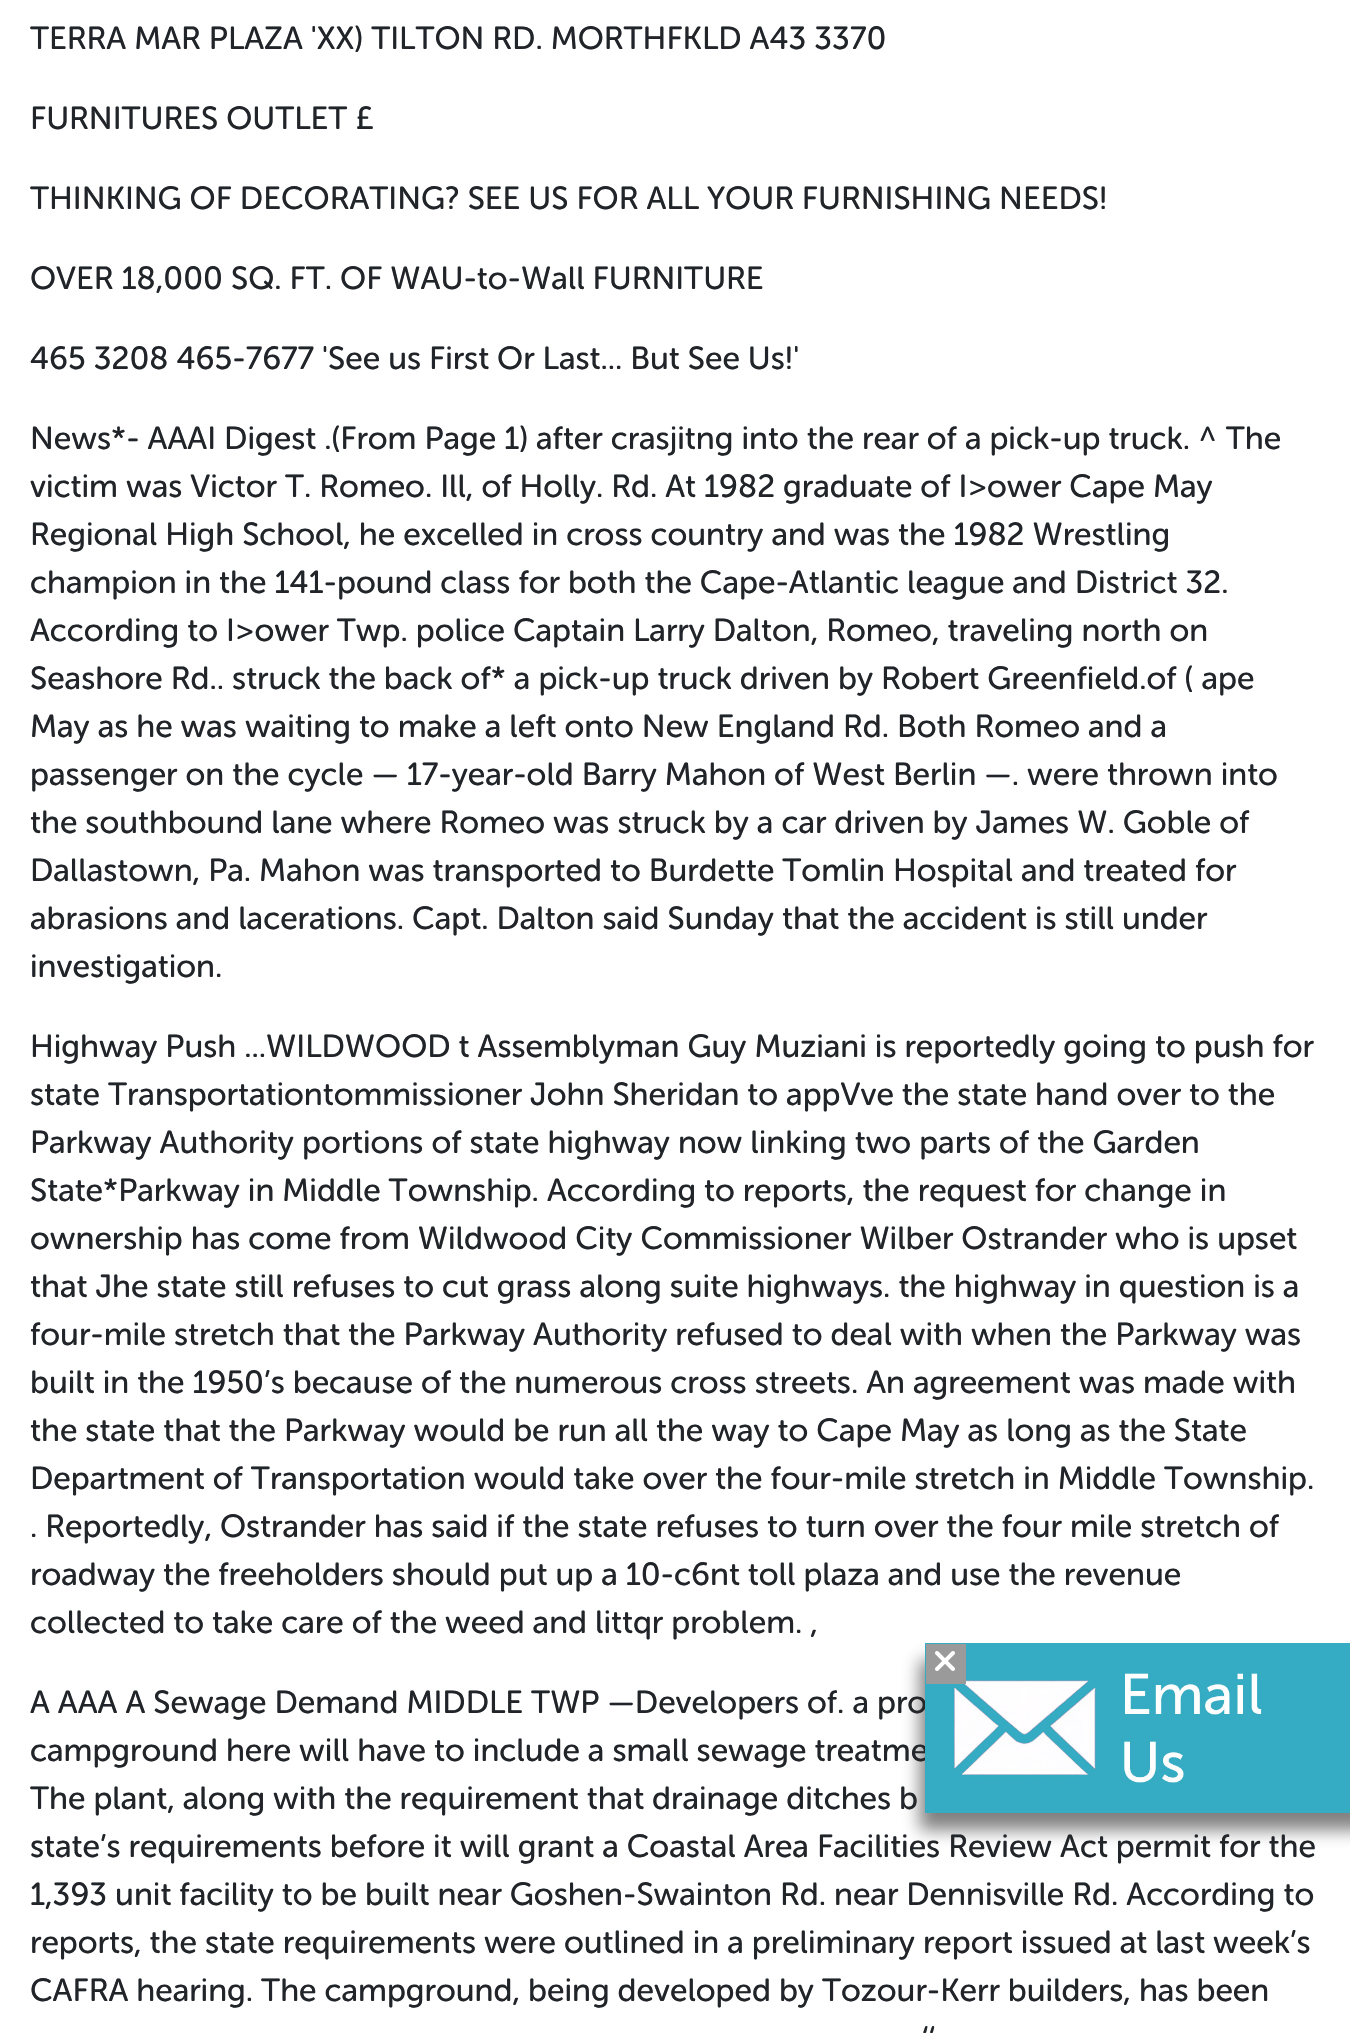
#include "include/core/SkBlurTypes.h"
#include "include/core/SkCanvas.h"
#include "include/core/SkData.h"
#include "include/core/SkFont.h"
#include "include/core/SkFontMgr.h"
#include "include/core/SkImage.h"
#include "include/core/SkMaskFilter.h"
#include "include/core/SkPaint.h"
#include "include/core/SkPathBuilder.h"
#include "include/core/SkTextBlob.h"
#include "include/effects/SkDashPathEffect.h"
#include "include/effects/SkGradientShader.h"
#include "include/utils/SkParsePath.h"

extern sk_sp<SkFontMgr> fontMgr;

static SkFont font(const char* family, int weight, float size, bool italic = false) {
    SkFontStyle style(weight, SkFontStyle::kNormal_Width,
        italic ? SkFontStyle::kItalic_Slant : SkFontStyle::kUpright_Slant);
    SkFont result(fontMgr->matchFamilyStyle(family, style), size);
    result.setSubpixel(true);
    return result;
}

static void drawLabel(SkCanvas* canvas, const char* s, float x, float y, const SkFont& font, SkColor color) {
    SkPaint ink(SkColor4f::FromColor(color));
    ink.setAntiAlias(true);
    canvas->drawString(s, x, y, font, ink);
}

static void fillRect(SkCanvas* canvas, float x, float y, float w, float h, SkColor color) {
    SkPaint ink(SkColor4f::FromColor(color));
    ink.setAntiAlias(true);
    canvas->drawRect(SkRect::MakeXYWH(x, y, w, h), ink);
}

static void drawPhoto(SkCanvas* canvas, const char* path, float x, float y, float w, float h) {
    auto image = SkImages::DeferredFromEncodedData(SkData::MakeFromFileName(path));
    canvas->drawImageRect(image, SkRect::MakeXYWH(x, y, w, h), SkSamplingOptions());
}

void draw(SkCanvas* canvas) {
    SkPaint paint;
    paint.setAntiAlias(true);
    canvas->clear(0xFFFFFFFF);
    SkFont font1 = font("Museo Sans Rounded", 400, 32);
    drawLabel(canvas, "TERRA MAR PLAZA 'XX) TILTON RD. MORTHFKLD A43 3370", 30, 49, font1, 0xFF212529);
    drawLabel(canvas, "FURNITURES OUTLET £", 30, 129, font1, 0xFF212529);
    drawLabel(canvas, "THINKING OF DECORATING? SEE US FOR ALL YOUR FURNISHING NEEDS!", 30, 209, font1, 0xFF212529);
    drawLabel(canvas, "OVER 18,000 SQ. FT. OF WAU-to-Wall FURNITURE", 30, 289, font1, 0xFF212529);
    drawLabel(canvas, "465 3208 465-7677 'See us First Or Last... But See Us!'", 30, 369, font1, 0xFF212529);
    drawLabel(canvas, "News*- AAAI Digest .(From Page 1) after crasjitng into the rear of a pick-up truck. ^ The", 30, 449, font1, 0xFF212529);
    drawLabel(canvas, "victim was Victor T. Romeo. Ill, of Holly. Rd. At 1982 graduate of I>ower Cape May", 30, 497, font1, 0xFF212529);
    drawLabel(canvas, "Regional High School, he excelled in cross country and was the 1982 Wrestling", 30, 545, font1, 0xFF212529);
    drawLabel(canvas, "champion in the 141-pound class for both the Cape-Atlantic league and District 32.", 30, 593, font1, 0xFF212529);
    drawLabel(canvas, "According to I>ower Twp. police Captain Larry Dalton, Romeo, traveling north on", 30, 641, font1, 0xFF212529);
    drawLabel(canvas, "Seashore Rd.. struck the back of* a pick-up truck driven by Robert Greenfield.of ( ape", 30, 689, font1, 0xFF212529);
    drawLabel(canvas, "May as he was waiting to make a left onto New England Rd. Both Romeo and a", 30, 737, font1, 0xFF212529);
    drawLabel(canvas, "passenger on the cycle — 17-year-old Barry Mahon of West Berlin —. were thrown into", 30, 785, font1, 0xFF212529);
    drawLabel(canvas, "the southbound lane where Romeo was struck by a car driven by James W. Goble of", 30, 833, font1, 0xFF212529);
    drawLabel(canvas, "Dallastown, Pa. Mahon was transported to Burdette Tomlin Hospital and treated for", 30, 881, font1, 0xFF212529);
    drawLabel(canvas, "abrasions and lacerations. Capt. Dalton said Sunday that the accident is still under", 30, 929, font1, 0xFF212529);
    drawLabel(canvas, "investigation.", 30, 977, font1, 0xFF212529);
    drawLabel(canvas, "Highway Push ...WILDWOOD t Assemblyman Guy Muziani is reportedly going to push for", 30, 1057, font1, 0xFF212529);
    drawLabel(canvas, "state Transportationtommissioner John Sheridan to appVve the state hand over to the", 30, 1105, font1, 0xFF212529);
    drawLabel(canvas, "Parkway Authority portions of state highway now linking two parts of the Garden", 30, 1153, font1, 0xFF212529);
    drawLabel(canvas, "State*Parkway in Middle Township. According to reports, the request for change in", 30, 1201, font1, 0xFF212529);
    drawLabel(canvas, "ownership has come from Wildwood City Commissioner Wilber Ostrander who is upset", 30, 1249, font1, 0xFF212529);
    drawLabel(canvas, "that Jhe state still refuses to cut grass along suite highways. the highway in question is a", 30, 1297, font1, 0xFF212529);
    drawLabel(canvas, "four-mile stretch that the Parkway Authority refused to deal with when the Parkway was", 30, 1345, font1, 0xFF212529);
    drawLabel(canvas, "built in the 1950’s because of the numerous cross streets. An agreement was made with", 30, 1393, font1, 0xFF212529);
    drawLabel(canvas, "the state that the Parkway would be run all the way to Cape May as long as the State", 30, 1441, font1, 0xFF212529);
    drawLabel(canvas, "Department of Transportation would take over the four-mile stretch in Middle Township.", 30, 1489, font1, 0xFF212529);
    drawLabel(canvas, ". Reportedly, Ostrander has said if the state refuses to turn over the four mile stretch of", 30, 1537, font1, 0xFF212529);
    drawLabel(canvas, "roadway the freeholders should put up a 10-c6nt toll plaza and use the revenue", 30, 1585, font1, 0xFF212529);
    drawLabel(canvas, "collected to take care of the weed and littqr problem. ,", 30, 1633, font1, 0xFF212529);
    drawLabel(canvas, "A AAA A Sewage Demand MIDDLE TWP —Developers of. a pro", 30, 1713, font1, 0xFF212529);
    drawLabel(canvas, "campground here will have to include a small sewage treatme", 30, 1761, font1, 0xFF212529);
    drawLabel(canvas, "The plant, along with the requirement that drainage ditches b", 30, 1809, font1, 0xFF212529);
    drawLabel(canvas, "state’s requirements before it will grant a Coastal Area Facilities Review Act permit for the", 30, 1857, font1, 0xFF212529);
    drawLabel(canvas, "1,393 unit facility to be built near Goshen-Swainton Rd. near Dennisville Rd. According to", 30, 1905, font1, 0xFF212529);
    drawLabel(canvas, "reports, the state requirements were outlined in a preliminary report issued at last week’s", 30, 1953, font1, 0xFF212529);
    drawLabel(canvas, "CAFRA hearing. The campground, being developed by Tozour-Kerr builders, has been", 30, 2001, font1, 0xFF212529);
    drawLabel(canvas, "‘‘", 922, 2049, font1, 0xFF212529);
    paint.setColor(0x992B2B2B);
    paint.setMaskFilter(SkMaskFilter::MakeBlur(kNormal_SkBlurStyle, 8));
    canvas->drawRect(SkRect::MakeXYWH(920, 1660, 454, 170), paint);
    paint.setMaskFilter(nullptr);
    drawPhoto(canvas, "assets/img1.png", 925, 1643, 425, 170);
    fillRect(canvas, 926, 1644, 40, 40, 0xFF9A9A9A);
    drawPhoto(canvas, "assets/img2.png", 935, 1651, 20, 20);
}
